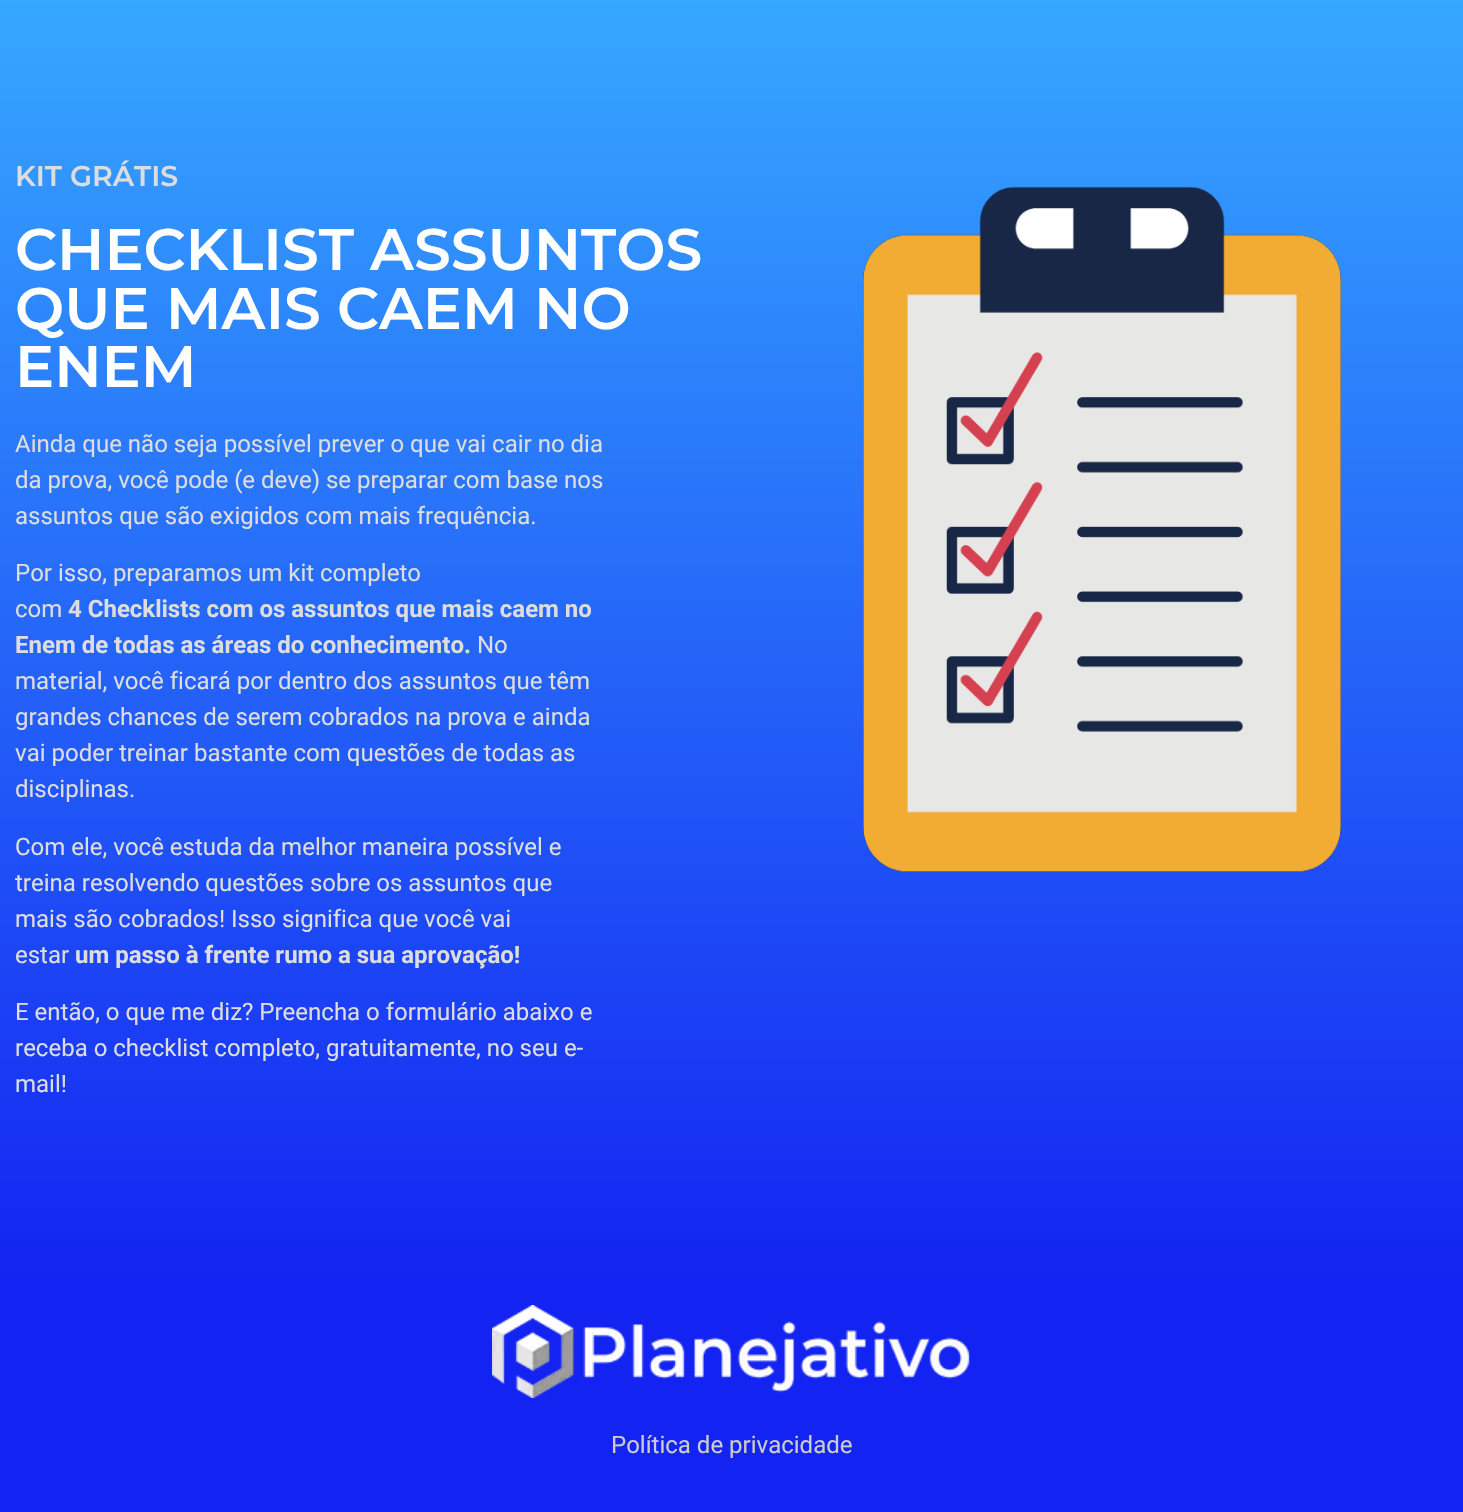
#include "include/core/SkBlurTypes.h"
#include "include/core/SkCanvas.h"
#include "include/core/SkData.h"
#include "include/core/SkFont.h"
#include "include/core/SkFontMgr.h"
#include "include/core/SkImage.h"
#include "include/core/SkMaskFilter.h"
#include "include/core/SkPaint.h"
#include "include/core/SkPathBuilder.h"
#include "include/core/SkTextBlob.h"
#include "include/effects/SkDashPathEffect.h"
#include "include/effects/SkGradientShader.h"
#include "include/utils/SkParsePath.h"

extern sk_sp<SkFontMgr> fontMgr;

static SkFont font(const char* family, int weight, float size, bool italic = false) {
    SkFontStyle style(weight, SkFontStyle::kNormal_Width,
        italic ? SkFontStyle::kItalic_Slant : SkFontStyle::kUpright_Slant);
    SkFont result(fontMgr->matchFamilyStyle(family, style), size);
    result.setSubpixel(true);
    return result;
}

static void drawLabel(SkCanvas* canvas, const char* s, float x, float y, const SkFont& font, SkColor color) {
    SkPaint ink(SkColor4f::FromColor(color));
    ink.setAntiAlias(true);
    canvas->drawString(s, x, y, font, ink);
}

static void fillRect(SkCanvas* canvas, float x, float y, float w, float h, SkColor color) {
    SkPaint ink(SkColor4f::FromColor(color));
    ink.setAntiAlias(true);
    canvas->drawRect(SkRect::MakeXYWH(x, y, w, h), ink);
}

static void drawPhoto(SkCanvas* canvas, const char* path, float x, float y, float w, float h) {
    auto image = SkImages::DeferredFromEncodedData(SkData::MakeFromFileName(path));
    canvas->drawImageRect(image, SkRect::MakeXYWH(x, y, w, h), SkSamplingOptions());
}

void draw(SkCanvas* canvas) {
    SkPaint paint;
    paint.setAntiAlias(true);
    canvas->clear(0xFFFFFFFF);
    {
        const SkColor colors[] = {0xFF36A8FF, 0xFF1323F2};
        const float stops[] = {0, 1};
        const SkPoint ends[] = {{732, -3}, {732, 1290}};
        paint.setShader(SkGradientShader::MakeLinear(ends, colors, stops, 2, SkTileMode::kClamp));
        paint.setAlpha(255);
    }
    canvas->drawRect(SkRect::MakeXYWH(0, 0, 1463, 1290), paint);
    SkFont font1 = font("Montserrat", 600, 28.5f);
    drawLabel(canvas, "KIT GRÁTIS", 15, 186, font1, 0xFFDDDDDD);
    SkFont font2 = font("Montserrat", 600, 58.5f);
    drawLabel(canvas, "CHECKLIST ASSUNTOS", 15, 270, font2, 0xFFFFFFFF);
    drawLabel(canvas, "QUE MAIS CAEM NO", 15, 329, font2, 0xFFFFFFFF);
    drawLabel(canvas, "ENEM", 15, 387, font2, 0xFFFFFFFF);
    SkFont font3 = font("Roboto", 400, 24);
    drawLabel(canvas, "Ainda que não seja possível prever o que vai cair no dia", 15, 452, font3, 0xFFDDDDDD);
    drawLabel(canvas, "da prova, você pode (e deve) se preparar com base nos", 15, 488, font3, 0xFFDDDDDD);
    drawLabel(canvas, "assuntos que são exigidos com mais frequência.", 15, 524, font3, 0xFFDDDDDD);
    drawLabel(canvas, "Por isso, preparamos um kit completo", 15, 581, font3, 0xFFDDDDDD);
    drawLabel(canvas, "com", 15, 617, font3, 0xFFDDDDDD);
    SkFont font4 = font("Roboto", 700, 24);
    drawLabel(canvas, "4 Checklists com os assuntos que mais caem no", 68, 617, font4, 0xFFDDDDDD);
    drawLabel(canvas, "Enem de todas as áreas do conhecimento.", 15, 653, font4, 0xFFDDDDDD);
    drawLabel(canvas, "No", 477, 653, font3, 0xFFDDDDDD);
    drawLabel(canvas, "material, você ficará por dentro dos assuntos que têm", 15, 689, font3, 0xFFDDDDDD);
    drawLabel(canvas, "grandes chances de serem cobrados na prova e ainda", 15, 725, font3, 0xFFDDDDDD);
    drawLabel(canvas, "vai poder treinar bastante com questões de todas as", 15, 761, font3, 0xFFDDDDDD);
    drawLabel(canvas, "disciplinas.", 15, 797, font3, 0xFFDDDDDD);
    drawLabel(canvas, "Com ele, você estuda da melhor maneira possível e", 15, 855, font3, 0xFFDDDDDD);
    drawLabel(canvas, "treina resolvendo questões sobre os assuntos que", 15, 891, font3, 0xFFDDDDDD);
    drawLabel(canvas, "mais são cobrados! Isso significa que você vai", 15, 927, font3, 0xFFDDDDDD);
    drawLabel(canvas, "estar", 15, 963, font3, 0xFFDDDDDD);
    drawLabel(canvas, "um passo à frente rumo a sua aprovação!", 75, 963, font4, 0xFFDDDDDD);
    drawLabel(canvas, "E então, o que me diz? Preencha o formulário abaixo e", 15, 1020, font3, 0xFFDDDDDD);
    drawLabel(canvas, "receba o checklist completo, gratuitamente, no seu e-", 15, 1056, font3, 0xFFDDDDDD);
    drawLabel(canvas, "mail!", 15, 1092, font3, 0xFFDDDDDD);
    drawPhoto(canvas, "assets/img1.png", 863, 186, 478, 687);
    fillRect(canvas, 0, 1290, 1463, 222, 0xFF1323F2);
    drawPhoto(canvas, "assets/img2.png", 492, 1305, 478, 93);
    drawLabel(canvas, "Política de privacidade", 611, 1453, font3, 0xFFCCCCCC);
}
